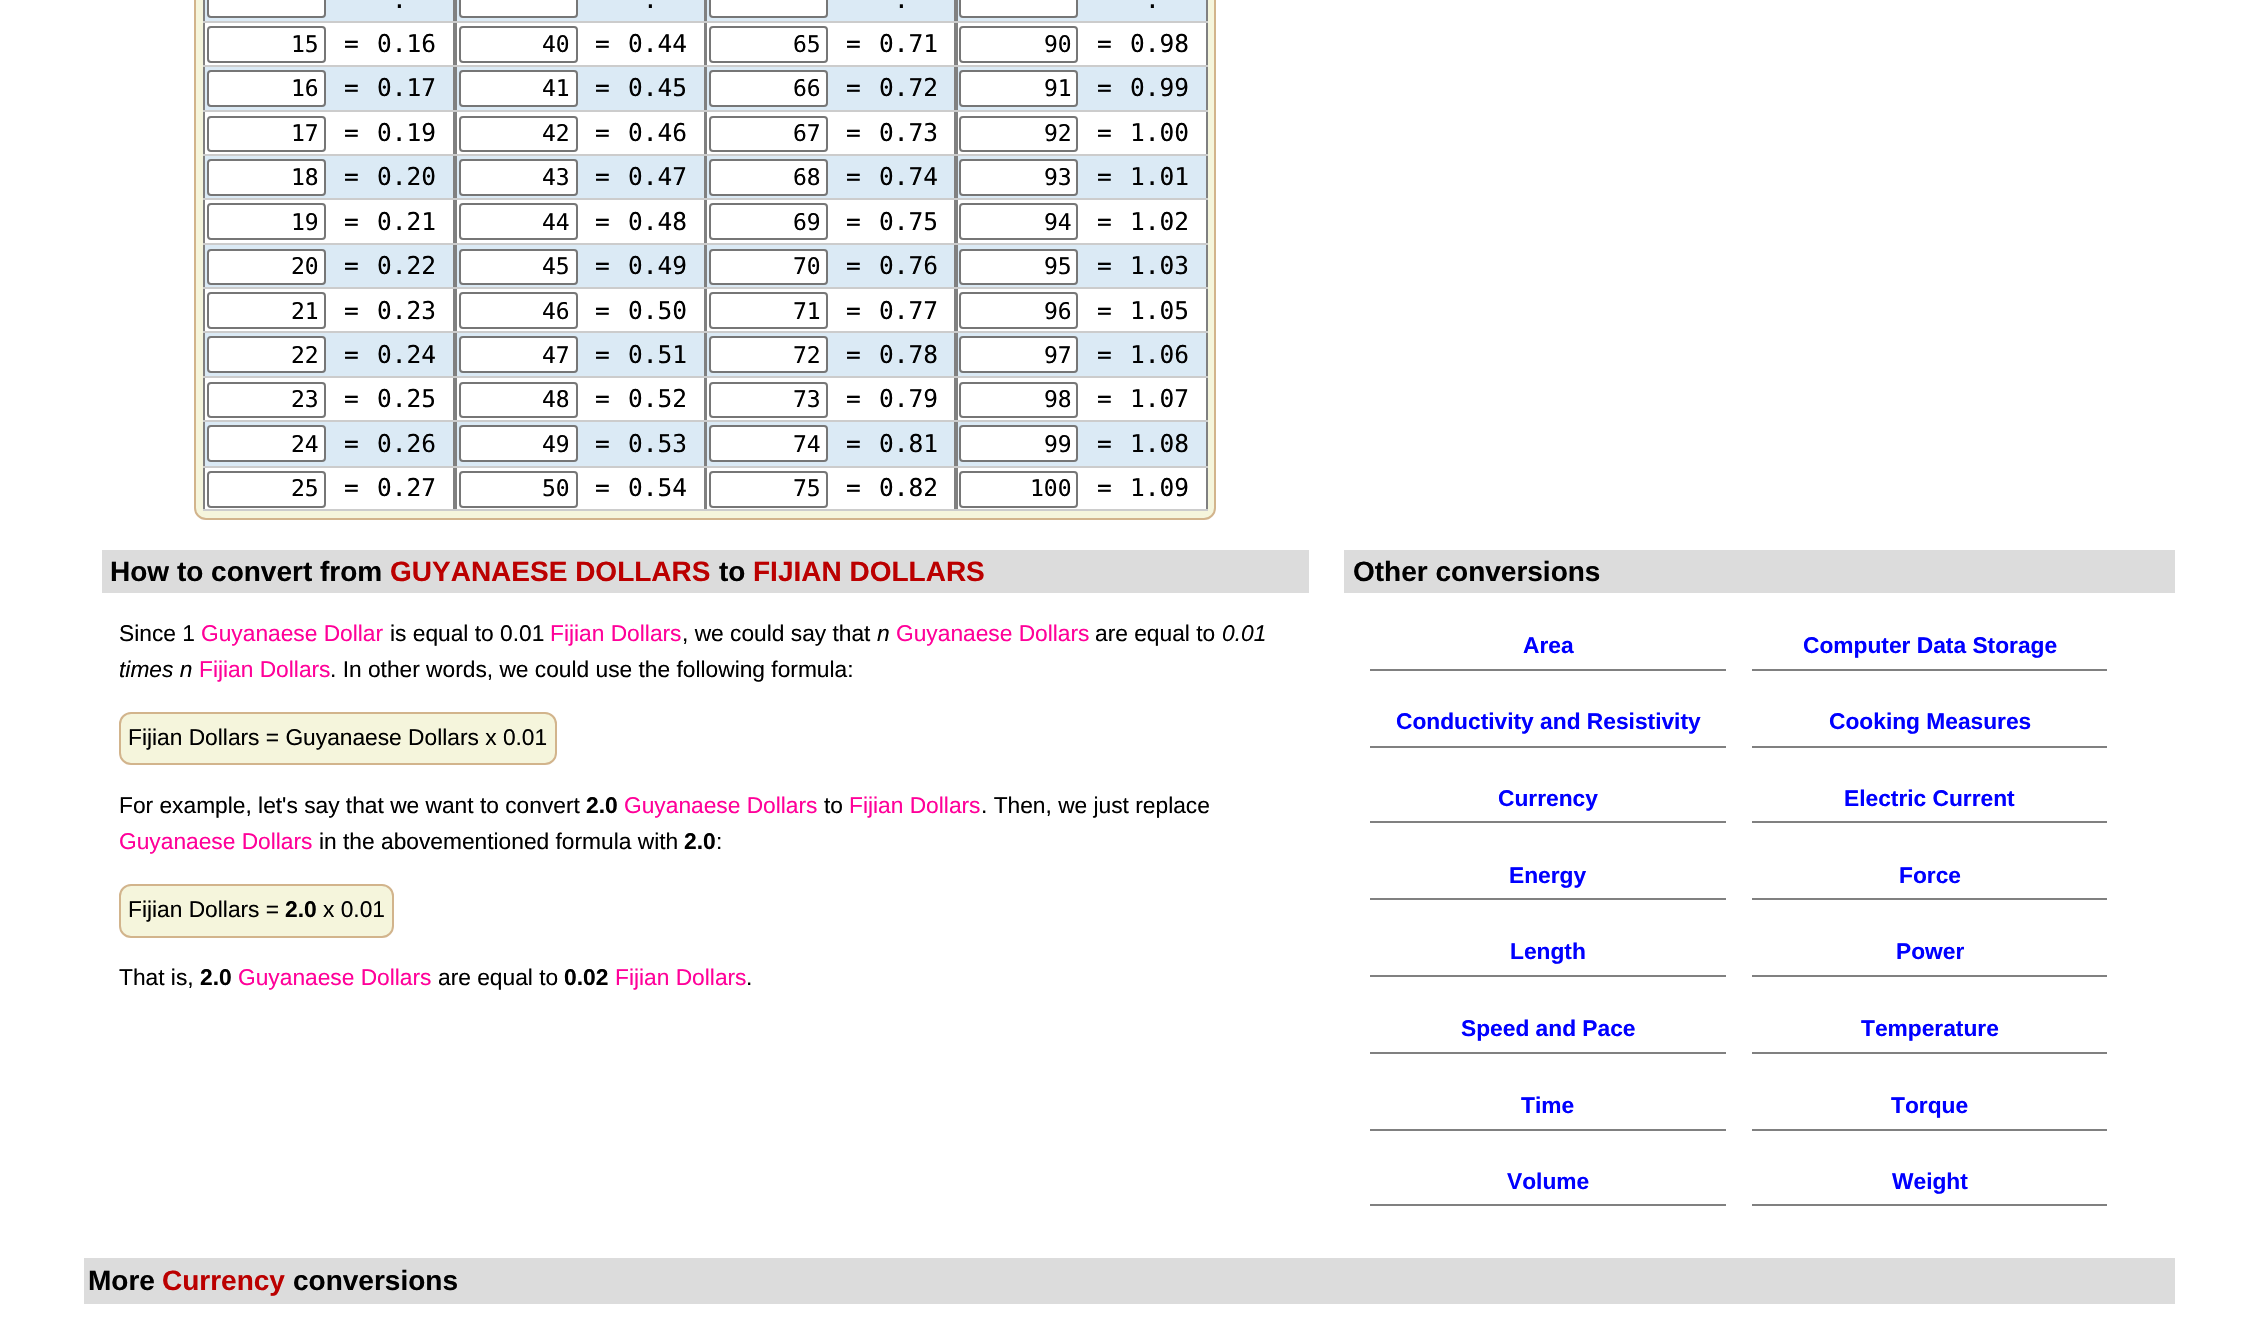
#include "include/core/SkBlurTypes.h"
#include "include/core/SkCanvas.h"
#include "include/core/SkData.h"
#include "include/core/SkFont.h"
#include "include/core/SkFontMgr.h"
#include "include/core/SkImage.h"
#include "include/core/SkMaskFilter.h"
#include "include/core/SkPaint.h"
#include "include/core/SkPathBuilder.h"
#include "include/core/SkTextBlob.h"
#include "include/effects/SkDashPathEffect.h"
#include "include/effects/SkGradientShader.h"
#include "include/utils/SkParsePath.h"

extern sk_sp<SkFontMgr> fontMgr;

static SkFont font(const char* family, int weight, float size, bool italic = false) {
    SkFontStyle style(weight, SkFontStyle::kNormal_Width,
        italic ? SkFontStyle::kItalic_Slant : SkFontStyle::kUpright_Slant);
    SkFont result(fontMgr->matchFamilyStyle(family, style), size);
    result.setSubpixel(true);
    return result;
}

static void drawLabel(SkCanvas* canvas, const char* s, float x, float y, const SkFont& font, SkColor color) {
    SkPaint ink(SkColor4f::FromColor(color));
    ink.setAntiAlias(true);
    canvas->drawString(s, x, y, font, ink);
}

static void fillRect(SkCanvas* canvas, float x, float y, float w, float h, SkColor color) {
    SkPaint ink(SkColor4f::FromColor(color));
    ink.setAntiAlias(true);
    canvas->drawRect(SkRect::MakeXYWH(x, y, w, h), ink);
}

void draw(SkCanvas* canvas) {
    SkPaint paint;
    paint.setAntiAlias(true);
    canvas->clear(0xFFFFFFFF);
    paint.setColor(0xFFF5F5DC);
    canvas->drawRoundRect(SkRect::MakeXYWH(195, -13, 1020, 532), 11, 11, paint);
    paint.setStroke(true);
    paint.setStrokeWidth(2);
    paint.setColor(0xFFD2B48C);
    canvas->drawRoundRect(SkRect::MakeXYWH(195, -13, 1020, 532), 11, 11, paint);
    fillRect(canvas, 453, 0, 4, 511, 0xFF808080);
    fillRect(canvas, 203, 0, 2, 511, 0xFF808080);
    fillRect(canvas, 205, 0, 248, 21, 0xFFDBEAF5);
    fillRect(canvas, 203, 21, 252, 2, 0xFFCCCCCC);
    paint.setStroke(false);
    paint.setColor(0xFFFFFFFF);
    canvas->drawRoundRect(SkRect::MakeXYWH(208, -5, 117, 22), 3, 3, paint);
    paint.setStroke(true);
    paint.setColor(0xFF767676);
    canvas->drawRoundRect(SkRect::MakeXYWH(208, -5, 117, 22), 3, 3, paint);
    SkFont font1 = font("DejaVu Sans Mono", 400, 24.5f);
    drawLabel(canvas, ".", 392, 8, font1, 0xFF000000);
    fillRect(canvas, 205, 23, 248, 42, 0xFFFFFFFF);
    fillRect(canvas, 203, 65, 252, 2, 0xFFCCCCCC);
    canvas->drawRoundRect(SkRect::MakeXYWH(208, 27, 117, 35), 3, 3, paint);
    SkFont font2 = font("DejaVu Sans Mono", 400, 23);
    drawLabel(canvas, "15", 291, 52, font2, 0xFF000000);
    drawLabel(canvas, "=", 344, 52, font1, 0xFF000000);
    drawLabel(canvas, "0.16", 377, 52, font1, 0xFF000000);
    fillRect(canvas, 205, 67, 248, 43, 0xFFDBEAF5);
    fillRect(canvas, 203, 110, 252, 2, 0xFFCCCCCC);
    paint.setStroke(false);
    paint.setColor(0xFFFFFFFF);
    canvas->drawRoundRect(SkRect::MakeXYWH(208, 71, 117, 35), 3, 3, paint);
    paint.setStroke(true);
    paint.setColor(0xFF767676);
    canvas->drawRoundRect(SkRect::MakeXYWH(208, 71, 117, 35), 3, 3, paint);
    drawLabel(canvas, "16", 291, 96, font2, 0xFF000000);
    drawLabel(canvas, "=", 344, 96, font1, 0xFF000000);
    drawLabel(canvas, "0.17", 377, 96, font1, 0xFF000000);
    fillRect(canvas, 205, 112, 248, 42, 0xFFFFFFFF);
    fillRect(canvas, 203, 154, 252, 2, 0xFFCCCCCC);
    canvas->drawRoundRect(SkRect::MakeXYWH(208, 117, 117, 34), 3, 3, paint);
    drawLabel(canvas, "17", 291, 141, font2, 0xFF000000);
    drawLabel(canvas, "=", 344, 141, font1, 0xFF000000);
    drawLabel(canvas, "0.19", 377, 141, font1, 0xFF000000);
    fillRect(canvas, 205, 156, 248, 42, 0xFFDBEAF5);
    fillRect(canvas, 203, 198, 252, 2, 0xFFCCCCCC);
    paint.setStroke(false);
    paint.setColor(0xFFFFFFFF);
    canvas->drawRoundRect(SkRect::MakeXYWH(208, 160, 117, 35), 3, 3, paint);
    paint.setStroke(true);
    paint.setColor(0xFF767676);
    canvas->drawRoundRect(SkRect::MakeXYWH(208, 160, 117, 35), 3, 3, paint);
    drawLabel(canvas, "18", 291, 185, font2, 0xFF000000);
    drawLabel(canvas, "=", 344, 185, font1, 0xFF000000);
    drawLabel(canvas, "0.20", 377, 185, font1, 0xFF000000);
    fillRect(canvas, 205, 200, 248, 43, 0xFFFFFFFF);
    fillRect(canvas, 203, 243, 252, 2, 0xFFCCCCCC);
    canvas->drawRoundRect(SkRect::MakeXYWH(208, 204, 117, 35), 3, 3, paint);
    drawLabel(canvas, "19", 291, 230, font2, 0xFF000000);
    drawLabel(canvas, "=", 344, 230, font1, 0xFF000000);
    drawLabel(canvas, "0.21", 377, 230, font1, 0xFF000000);
    fillRect(canvas, 205, 245, 248, 42, 0xFFDBEAF5);
    fillRect(canvas, 203, 287, 252, 2, 0xFFCCCCCC);
    paint.setStroke(false);
    paint.setColor(0xFFFFFFFF);
    canvas->drawRoundRect(SkRect::MakeXYWH(208, 250, 117, 34), 3, 3, paint);
    paint.setStroke(true);
    paint.setColor(0xFF767676);
    canvas->drawRoundRect(SkRect::MakeXYWH(208, 250, 117, 34), 3, 3, paint);
    drawLabel(canvas, "20", 291, 274, font2, 0xFF000000);
    drawLabel(canvas, "=", 344, 274, font1, 0xFF000000);
    drawLabel(canvas, "0.22", 377, 274, font1, 0xFF000000);
    fillRect(canvas, 205, 289, 248, 42, 0xFFFFFFFF);
    fillRect(canvas, 203, 331, 252, 2, 0xFFCCCCCC);
    canvas->drawRoundRect(SkRect::MakeXYWH(208, 293, 117, 35), 3, 3, paint);
    drawLabel(canvas, "21", 291, 319, font2, 0xFF000000);
    drawLabel(canvas, "=", 344, 319, font1, 0xFF000000);
    drawLabel(canvas, "0.23", 377, 319, font1, 0xFF000000);
    fillRect(canvas, 205, 333, 248, 43, 0xFFDBEAF5);
    fillRect(canvas, 203, 376, 252, 2, 0xFFCCCCCC);
    paint.setStroke(false);
    paint.setColor(0xFFFFFFFF);
    canvas->drawRoundRect(SkRect::MakeXYWH(208, 337, 117, 35), 3, 3, paint);
    paint.setStroke(true);
    paint.setColor(0xFF767676);
    canvas->drawRoundRect(SkRect::MakeXYWH(208, 337, 117, 35), 3, 3, paint);
    drawLabel(canvas, "22", 291, 363, font2, 0xFF000000);
    drawLabel(canvas, "=", 344, 363, font1, 0xFF000000);
    drawLabel(canvas, "0.24", 377, 363, font1, 0xFF000000);
    fillRect(canvas, 205, 378, 248, 42, 0xFFFFFFFF);
    fillRect(canvas, 203, 420, 252, 2, 0xFFCCCCCC);
    canvas->drawRoundRect(SkRect::MakeXYWH(208, 383, 117, 34), 3, 3, paint);
    drawLabel(canvas, "23", 291, 407, font2, 0xFF000000);
    drawLabel(canvas, "=", 344, 407, font1, 0xFF000000);
    drawLabel(canvas, "0.25", 377, 407, font1, 0xFF000000);
    fillRect(canvas, 205, 422, 248, 44, 0xFFDBEAF5);
    fillRect(canvas, 203, 466, 252, 2, 0xFFCCCCCC);
    paint.setStroke(false);
    paint.setColor(0xFFFFFFFF);
    canvas->drawRoundRect(SkRect::MakeXYWH(208, 426, 117, 35), 3, 3, paint);
    paint.setStroke(true);
    paint.setColor(0xFF767676);
    canvas->drawRoundRect(SkRect::MakeXYWH(208, 426, 117, 35), 3, 3, paint);
    drawLabel(canvas, "24", 291, 452, font2, 0xFF000000);
    drawLabel(canvas, "=", 344, 452, font1, 0xFF000000);
    drawLabel(canvas, "0.26", 377, 452, font1, 0xFF000000);
    fillRect(canvas, 205, 468, 248, 41, 0xFFFFFFFF);
    fillRect(canvas, 203, 509, 252, 2, 0xFFCCCCCC);
    canvas->drawRoundRect(SkRect::MakeXYWH(208, 472, 117, 35), 3, 3, paint);
    drawLabel(canvas, "25", 291, 496, font2, 0xFF000000);
    drawLabel(canvas, "=", 344, 496, font1, 0xFF000000);
    drawLabel(canvas, "0.27", 377, 496, font1, 0xFF000000);
    fillRect(canvas, 704, 0, 3, 511, 0xFF808080);
    fillRect(canvas, 457, 0, 247, 21, 0xFFDBEAF5);
    fillRect(canvas, 455, 21, 250, 2, 0xFFCCCCCC);
    paint.setStroke(false);
    paint.setColor(0xFFFFFFFF);
    canvas->drawRoundRect(SkRect::MakeXYWH(460, -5, 117, 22), 3, 3, paint);
    paint.setStroke(true);
    paint.setColor(0xFF767676);
    canvas->drawRoundRect(SkRect::MakeXYWH(460, -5, 117, 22), 3, 3, paint);
    drawLabel(canvas, ".", 643, 8, font1, 0xFF000000);
    fillRect(canvas, 457, 23, 247, 42, 0xFFFFFFFF);
    fillRect(canvas, 455, 65, 250, 2, 0xFFCCCCCC);
    canvas->drawRoundRect(SkRect::MakeXYWH(460, 27, 117, 35), 3, 3, paint);
    drawLabel(canvas, "40", 542, 52, font2, 0xFF000000);
    drawLabel(canvas, "=", 595, 52, font1, 0xFF000000);
    drawLabel(canvas, "0.44", 628, 52, font1, 0xFF000000);
    fillRect(canvas, 457, 67, 247, 43, 0xFFDBEAF5);
    fillRect(canvas, 455, 110, 250, 2, 0xFFCCCCCC);
    paint.setStroke(false);
    paint.setColor(0xFFFFFFFF);
    canvas->drawRoundRect(SkRect::MakeXYWH(460, 71, 117, 35), 3, 3, paint);
    paint.setStroke(true);
    paint.setColor(0xFF767676);
    canvas->drawRoundRect(SkRect::MakeXYWH(460, 71, 117, 35), 3, 3, paint);
    drawLabel(canvas, "41", 542, 96, font2, 0xFF000000);
    drawLabel(canvas, "=", 595, 96, font1, 0xFF000000);
    drawLabel(canvas, "0.45", 628, 96, font1, 0xFF000000);
    fillRect(canvas, 457, 112, 247, 42, 0xFFFFFFFF);
    fillRect(canvas, 455, 154, 250, 2, 0xFFCCCCCC);
    canvas->drawRoundRect(SkRect::MakeXYWH(460, 117, 117, 34), 3, 3, paint);
    drawLabel(canvas, "42", 542, 141, font2, 0xFF000000);
    drawLabel(canvas, "=", 595, 141, font1, 0xFF000000);
    drawLabel(canvas, "0.46", 628, 141, font1, 0xFF000000);
    fillRect(canvas, 457, 156, 247, 42, 0xFFDBEAF5);
    fillRect(canvas, 455, 198, 250, 2, 0xFFCCCCCC);
    paint.setStroke(false);
    paint.setColor(0xFFFFFFFF);
    canvas->drawRoundRect(SkRect::MakeXYWH(460, 160, 117, 35), 3, 3, paint);
    paint.setStroke(true);
    paint.setColor(0xFF767676);
    canvas->drawRoundRect(SkRect::MakeXYWH(460, 160, 117, 35), 3, 3, paint);
    drawLabel(canvas, "43", 542, 185, font2, 0xFF000000);
    drawLabel(canvas, "=", 595, 185, font1, 0xFF000000);
    drawLabel(canvas, "0.47", 628, 185, font1, 0xFF000000);
    fillRect(canvas, 457, 200, 247, 43, 0xFFFFFFFF);
    fillRect(canvas, 455, 243, 250, 2, 0xFFCCCCCC);
    canvas->drawRoundRect(SkRect::MakeXYWH(460, 204, 117, 35), 3, 3, paint);
    drawLabel(canvas, "44", 542, 230, font2, 0xFF000000);
    drawLabel(canvas, "=", 595, 230, font1, 0xFF000000);
    drawLabel(canvas, "0.48", 628, 230, font1, 0xFF000000);
    fillRect(canvas, 457, 245, 247, 42, 0xFFDBEAF5);
    fillRect(canvas, 455, 287, 250, 2, 0xFFCCCCCC);
    paint.setStroke(false);
    paint.setColor(0xFFFFFFFF);
    canvas->drawRoundRect(SkRect::MakeXYWH(460, 250, 117, 34), 3, 3, paint);
    paint.setStroke(true);
    paint.setColor(0xFF767676);
    canvas->drawRoundRect(SkRect::MakeXYWH(460, 250, 117, 34), 3, 3, paint);
    drawLabel(canvas, "45", 542, 274, font2, 0xFF000000);
    drawLabel(canvas, "=", 595, 274, font1, 0xFF000000);
    drawLabel(canvas, "0.49", 628, 274, font1, 0xFF000000);
    fillRect(canvas, 457, 289, 247, 42, 0xFFFFFFFF);
    fillRect(canvas, 455, 331, 250, 2, 0xFFCCCCCC);
    canvas->drawRoundRect(SkRect::MakeXYWH(460, 293, 117, 35), 3, 3, paint);
    drawLabel(canvas, "46", 542, 319, font2, 0xFF000000);
    drawLabel(canvas, "=", 595, 319, font1, 0xFF000000);
    drawLabel(canvas, "0.50", 628, 319, font1, 0xFF000000);
    fillRect(canvas, 457, 333, 247, 43, 0xFFDBEAF5);
    fillRect(canvas, 455, 376, 250, 2, 0xFFCCCCCC);
    paint.setStroke(false);
    paint.setColor(0xFFFFFFFF);
    canvas->drawRoundRect(SkRect::MakeXYWH(460, 337, 117, 35), 3, 3, paint);
    paint.setStroke(true);
    paint.setColor(0xFF767676);
    canvas->drawRoundRect(SkRect::MakeXYWH(460, 337, 117, 35), 3, 3, paint);
    drawLabel(canvas, "47", 542, 363, font2, 0xFF000000);
    drawLabel(canvas, "=", 595, 363, font1, 0xFF000000);
    drawLabel(canvas, "0.51", 628, 363, font1, 0xFF000000);
    fillRect(canvas, 457, 378, 247, 42, 0xFFFFFFFF);
    fillRect(canvas, 455, 420, 250, 2, 0xFFCCCCCC);
    canvas->drawRoundRect(SkRect::MakeXYWH(460, 383, 117, 34), 3, 3, paint);
    drawLabel(canvas, "48", 542, 407, font2, 0xFF000000);
    drawLabel(canvas, "=", 595, 407, font1, 0xFF000000);
    drawLabel(canvas, "0.52", 628, 407, font1, 0xFF000000);
    fillRect(canvas, 457, 422, 247, 44, 0xFFDBEAF5);
    fillRect(canvas, 455, 466, 250, 2, 0xFFCCCCCC);
    paint.setStroke(false);
    paint.setColor(0xFFFFFFFF);
    canvas->drawRoundRect(SkRect::MakeXYWH(460, 426, 117, 35), 3, 3, paint);
    paint.setStroke(true);
    paint.setColor(0xFF767676);
    canvas->drawRoundRect(SkRect::MakeXYWH(460, 426, 117, 35), 3, 3, paint);
    drawLabel(canvas, "49", 542, 452, font2, 0xFF000000);
    drawLabel(canvas, "=", 595, 452, font1, 0xFF000000);
    drawLabel(canvas, "0.53", 628, 452, font1, 0xFF000000);
    fillRect(canvas, 457, 468, 247, 41, 0xFFFFFFFF);
    fillRect(canvas, 455, 509, 250, 2, 0xFFCCCCCC);
    canvas->drawRoundRect(SkRect::MakeXYWH(460, 472, 117, 35), 3, 3, paint);
    drawLabel(canvas, "50", 542, 496, font2, 0xFF000000);
    drawLabel(canvas, "=", 595, 496, font1, 0xFF000000);
    drawLabel(canvas, "0.54", 628, 496, font1, 0xFF000000);
    fillRect(canvas, 954, 0, 4, 511, 0xFF808080);
    fillRect(canvas, 707, 0, 247, 21, 0xFFDBEAF5);
    fillRect(canvas, 705, 21, 251, 2, 0xFFCCCCCC);
    paint.setStroke(false);
    paint.setColor(0xFFFFFFFF);
    canvas->drawRoundRect(SkRect::MakeXYWH(710, -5, 117, 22), 3, 3, paint);
    paint.setStroke(true);
    paint.setColor(0xFF767676);
    canvas->drawRoundRect(SkRect::MakeXYWH(710, -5, 117, 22), 3, 3, paint);
    drawLabel(canvas, ".", 894, 8, font1, 0xFF000000);
    fillRect(canvas, 707, 23, 247, 42, 0xFFFFFFFF);
    fillRect(canvas, 705, 65, 251, 2, 0xFFCCCCCC);
    canvas->drawRoundRect(SkRect::MakeXYWH(710, 27, 117, 35), 3, 3, paint);
    drawLabel(canvas, "65", 793, 52, font2, 0xFF000000);
    drawLabel(canvas, "=", 846, 52, font1, 0xFF000000);
    drawLabel(canvas, "0.71", 879, 52, font1, 0xFF000000);
    fillRect(canvas, 707, 67, 247, 43, 0xFFDBEAF5);
    fillRect(canvas, 705, 110, 251, 2, 0xFFCCCCCC);
    paint.setStroke(false);
    paint.setColor(0xFFFFFFFF);
    canvas->drawRoundRect(SkRect::MakeXYWH(710, 71, 117, 35), 3, 3, paint);
    paint.setStroke(true);
    paint.setColor(0xFF767676);
    canvas->drawRoundRect(SkRect::MakeXYWH(710, 71, 117, 35), 3, 3, paint);
    drawLabel(canvas, "66", 793, 96, font2, 0xFF000000);
    drawLabel(canvas, "=", 846, 96, font1, 0xFF000000);
    drawLabel(canvas, "0.72", 879, 96, font1, 0xFF000000);
    fillRect(canvas, 707, 112, 247, 42, 0xFFFFFFFF);
    fillRect(canvas, 705, 154, 251, 2, 0xFFCCCCCC);
    canvas->drawRoundRect(SkRect::MakeXYWH(710, 117, 117, 34), 3, 3, paint);
    drawLabel(canvas, "67", 793, 141, font2, 0xFF000000);
    drawLabel(canvas, "=", 846, 141, font1, 0xFF000000);
    drawLabel(canvas, "0.73", 879, 141, font1, 0xFF000000);
    fillRect(canvas, 707, 156, 247, 42, 0xFFDBEAF5);
    fillRect(canvas, 705, 198, 251, 2, 0xFFCCCCCC);
    paint.setStroke(false);
    paint.setColor(0xFFFFFFFF);
    canvas->drawRoundRect(SkRect::MakeXYWH(710, 160, 117, 35), 3, 3, paint);
    paint.setStroke(true);
    paint.setColor(0xFF767676);
    canvas->drawRoundRect(SkRect::MakeXYWH(710, 160, 117, 35), 3, 3, paint);
    drawLabel(canvas, "68", 793, 185, font2, 0xFF000000);
    drawLabel(canvas, "=", 846, 185, font1, 0xFF000000);
    drawLabel(canvas, "0.74", 879, 185, font1, 0xFF000000);
    fillRect(canvas, 707, 200, 247, 43, 0xFFFFFFFF);
    fillRect(canvas, 705, 243, 251, 2, 0xFFCCCCCC);
    canvas->drawRoundRect(SkRect::MakeXYWH(710, 204, 117, 35), 3, 3, paint);
    drawLabel(canvas, "69", 793, 230, font2, 0xFF000000);
    drawLabel(canvas, "=", 846, 230, font1, 0xFF000000);
    drawLabel(canvas, "0.75", 879, 230, font1, 0xFF000000);
    fillRect(canvas, 707, 245, 247, 42, 0xFFDBEAF5);
    fillRect(canvas, 705, 287, 251, 2, 0xFFCCCCCC);
    paint.setStroke(false);
    paint.setColor(0xFFFFFFFF);
    canvas->drawRoundRect(SkRect::MakeXYWH(710, 250, 117, 34), 3, 3, paint);
    paint.setStroke(true);
    paint.setColor(0xFF767676);
    canvas->drawRoundRect(SkRect::MakeXYWH(710, 250, 117, 34), 3, 3, paint);
    drawLabel(canvas, "70", 793, 274, font2, 0xFF000000);
    drawLabel(canvas, "=", 846, 274, font1, 0xFF000000);
    drawLabel(canvas, "0.76", 879, 274, font1, 0xFF000000);
    fillRect(canvas, 707, 289, 247, 42, 0xFFFFFFFF);
    fillRect(canvas, 705, 331, 251, 2, 0xFFCCCCCC);
    canvas->drawRoundRect(SkRect::MakeXYWH(710, 293, 117, 35), 3, 3, paint);
    drawLabel(canvas, "71", 793, 319, font2, 0xFF000000);
    drawLabel(canvas, "=", 846, 319, font1, 0xFF000000);
    drawLabel(canvas, "0.77", 879, 319, font1, 0xFF000000);
    fillRect(canvas, 707, 333, 247, 43, 0xFFDBEAF5);
    fillRect(canvas, 705, 376, 251, 2, 0xFFCCCCCC);
    paint.setStroke(false);
    paint.setColor(0xFFFFFFFF);
    canvas->drawRoundRect(SkRect::MakeXYWH(710, 337, 117, 35), 3, 3, paint);
    paint.setStroke(true);
    paint.setColor(0xFF767676);
    canvas->drawRoundRect(SkRect::MakeXYWH(710, 337, 117, 35), 3, 3, paint);
    drawLabel(canvas, "72", 793, 363, font2, 0xFF000000);
    drawLabel(canvas, "=", 846, 363, font1, 0xFF000000);
    drawLabel(canvas, "0.78", 879, 363, font1, 0xFF000000);
    fillRect(canvas, 707, 378, 247, 42, 0xFFFFFFFF);
    fillRect(canvas, 705, 420, 251, 2, 0xFFCCCCCC);
    canvas->drawRoundRect(SkRect::MakeXYWH(710, 383, 117, 34), 3, 3, paint);
    drawLabel(canvas, "73", 793, 407, font2, 0xFF000000);
    drawLabel(canvas, "=", 846, 407, font1, 0xFF000000);
    drawLabel(canvas, "0.79", 879, 407, font1, 0xFF000000);
    fillRect(canvas, 707, 422, 247, 44, 0xFFDBEAF5);
    fillRect(canvas, 705, 466, 251, 2, 0xFFCCCCCC);
    paint.setStroke(false);
    paint.setColor(0xFFFFFFFF);
    canvas->drawRoundRect(SkRect::MakeXYWH(710, 426, 117, 35), 3, 3, paint);
    paint.setStroke(true);
    paint.setColor(0xFF767676);
    canvas->drawRoundRect(SkRect::MakeXYWH(710, 426, 117, 35), 3, 3, paint);
    drawLabel(canvas, "74", 793, 452, font2, 0xFF000000);
    drawLabel(canvas, "=", 846, 452, font1, 0xFF000000);
    drawLabel(canvas, "0.81", 879, 452, font1, 0xFF000000);
    fillRect(canvas, 707, 468, 247, 41, 0xFFFFFFFF);
    fillRect(canvas, 705, 509, 251, 2, 0xFFCCCCCC);
    canvas->drawRoundRect(SkRect::MakeXYWH(710, 472, 117, 35), 3, 3, paint);
    drawLabel(canvas, "75", 793, 496, font2, 0xFF000000);
    drawLabel(canvas, "=", 846, 496, font1, 0xFF000000);
    drawLabel(canvas, "0.82", 879, 496, font1, 0xFF000000);
    fillRect(canvas, 1206, 0, 2, 511, 0xFF808080);
    fillRect(canvas, 958, 0, 248, 21, 0xFFDBEAF5);
    fillRect(canvas, 956, 21, 252, 2, 0xFFCCCCCC);
    paint.setStroke(false);
    paint.setColor(0xFFFFFFFF);
    canvas->drawRoundRect(SkRect::MakeXYWH(960, -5, 117, 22), 3, 3, paint);
    paint.setStroke(true);
    paint.setColor(0xFF767676);
    canvas->drawRoundRect(SkRect::MakeXYWH(960, -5, 117, 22), 3, 3, paint);
    drawLabel(canvas, ".", 1145, 8, font1, 0xFF000000);
    fillRect(canvas, 958, 23, 248, 42, 0xFFFFFFFF);
    fillRect(canvas, 956, 65, 252, 2, 0xFFCCCCCC);
    canvas->drawRoundRect(SkRect::MakeXYWH(960, 27, 117, 35), 3, 3, paint);
    drawLabel(canvas, "90", 1044, 52, font2, 0xFF000000);
    drawLabel(canvas, "=", 1097, 52, font1, 0xFF000000);
    drawLabel(canvas, "0.98", 1130, 52, font1, 0xFF000000);
    fillRect(canvas, 958, 67, 248, 43, 0xFFDBEAF5);
    fillRect(canvas, 956, 110, 252, 2, 0xFFCCCCCC);
    paint.setStroke(false);
    paint.setColor(0xFFFFFFFF);
    canvas->drawRoundRect(SkRect::MakeXYWH(960, 71, 117, 35), 3, 3, paint);
    paint.setStroke(true);
    paint.setColor(0xFF767676);
    canvas->drawRoundRect(SkRect::MakeXYWH(960, 71, 117, 35), 3, 3, paint);
    drawLabel(canvas, "91", 1044, 96, font2, 0xFF000000);
    drawLabel(canvas, "=", 1097, 96, font1, 0xFF000000);
    drawLabel(canvas, "0.99", 1130, 96, font1, 0xFF000000);
    fillRect(canvas, 958, 112, 248, 42, 0xFFFFFFFF);
    fillRect(canvas, 956, 154, 252, 2, 0xFFCCCCCC);
    canvas->drawRoundRect(SkRect::MakeXYWH(960, 117, 117, 34), 3, 3, paint);
    drawLabel(canvas, "92", 1044, 141, font2, 0xFF000000);
    drawLabel(canvas, "=", 1097, 141, font1, 0xFF000000);
    drawLabel(canvas, "1.00", 1130, 141, font1, 0xFF000000);
    fillRect(canvas, 958, 156, 248, 42, 0xFFDBEAF5);
    fillRect(canvas, 956, 198, 252, 2, 0xFFCCCCCC);
    paint.setStroke(false);
    paint.setColor(0xFFFFFFFF);
    canvas->drawRoundRect(SkRect::MakeXYWH(960, 160, 117, 35), 3, 3, paint);
    paint.setStroke(true);
    paint.setColor(0xFF767676);
    canvas->drawRoundRect(SkRect::MakeXYWH(960, 160, 117, 35), 3, 3, paint);
    drawLabel(canvas, "93", 1044, 185, font2, 0xFF000000);
    drawLabel(canvas, "=", 1097, 185, font1, 0xFF000000);
    drawLabel(canvas, "1.01", 1130, 185, font1, 0xFF000000);
    fillRect(canvas, 958, 200, 248, 43, 0xFFFFFFFF);
    fillRect(canvas, 956, 243, 252, 2, 0xFFCCCCCC);
    canvas->drawRoundRect(SkRect::MakeXYWH(960, 204, 117, 35), 3, 3, paint);
    drawLabel(canvas, "94", 1044, 230, font2, 0xFF000000);
    drawLabel(canvas, "=", 1097, 230, font1, 0xFF000000);
    drawLabel(canvas, "1.02", 1130, 230, font1, 0xFF000000);
    fillRect(canvas, 958, 245, 248, 42, 0xFFDBEAF5);
    fillRect(canvas, 956, 287, 252, 2, 0xFFCCCCCC);
    paint.setStroke(false);
    paint.setColor(0xFFFFFFFF);
    canvas->drawRoundRect(SkRect::MakeXYWH(960, 250, 117, 34), 3, 3, paint);
    paint.setStroke(true);
    paint.setColor(0xFF767676);
    canvas->drawRoundRect(SkRect::MakeXYWH(960, 250, 117, 34), 3, 3, paint);
    drawLabel(canvas, "95", 1044, 274, font2, 0xFF000000);
    drawLabel(canvas, "=", 1097, 274, font1, 0xFF000000);
    drawLabel(canvas, "1.03", 1130, 274, font1, 0xFF000000);
    fillRect(canvas, 958, 289, 248, 42, 0xFFFFFFFF);
    fillRect(canvas, 956, 331, 252, 2, 0xFFCCCCCC);
    canvas->drawRoundRect(SkRect::MakeXYWH(960, 293, 117, 35), 3, 3, paint);
    drawLabel(canvas, "96", 1044, 319, font2, 0xFF000000);
    drawLabel(canvas, "=", 1097, 319, font1, 0xFF000000);
    drawLabel(canvas, "1.05", 1130, 319, font1, 0xFF000000);
    fillRect(canvas, 958, 333, 248, 43, 0xFFDBEAF5);
    fillRect(canvas, 956, 376, 252, 2, 0xFFCCCCCC);
    paint.setStroke(false);
    paint.setColor(0xFFFFFFFF);
    canvas->drawRoundRect(SkRect::MakeXYWH(960, 337, 117, 35), 3, 3, paint);
    paint.setStroke(true);
    paint.setColor(0xFF767676);
    canvas->drawRoundRect(SkRect::MakeXYWH(960, 337, 117, 35), 3, 3, paint);
    drawLabel(canvas, "97", 1044, 363, font2, 0xFF000000);
    drawLabel(canvas, "=", 1097, 363, font1, 0xFF000000);
    drawLabel(canvas, "1.06", 1130, 363, font1, 0xFF000000);
    fillRect(canvas, 958, 378, 248, 42, 0xFFFFFFFF);
    fillRect(canvas, 956, 420, 252, 2, 0xFFCCCCCC);
    canvas->drawRoundRect(SkRect::MakeXYWH(960, 383, 117, 34), 3, 3, paint);
    drawLabel(canvas, "98", 1044, 407, font2, 0xFF000000);
    drawLabel(canvas, "=", 1097, 407, font1, 0xFF000000);
    drawLabel(canvas, "1.07", 1130, 407, font1, 0xFF000000);
    fillRect(canvas, 958, 422, 248, 44, 0xFFDBEAF5);
    fillRect(canvas, 956, 466, 252, 2, 0xFFCCCCCC);
    paint.setStroke(false);
    paint.setColor(0xFFFFFFFF);
    canvas->drawRoundRect(SkRect::MakeXYWH(960, 426, 117, 35), 3, 3, paint);
    paint.setStroke(true);
    paint.setColor(0xFF767676);
    canvas->drawRoundRect(SkRect::MakeXYWH(960, 426, 117, 35), 3, 3, paint);
    drawLabel(canvas, "99", 1044, 452, font2, 0xFF000000);
    drawLabel(canvas, "=", 1097, 452, font1, 0xFF000000);
    drawLabel(canvas, "1.08", 1130, 452, font1, 0xFF000000);
    fillRect(canvas, 958, 468, 248, 41, 0xFFFFFFFF);
    fillRect(canvas, 956, 509, 252, 2, 0xFFCCCCCC);
    canvas->drawRoundRect(SkRect::MakeXYWH(960, 472, 117, 35), 3, 3, paint);
    drawLabel(canvas, "100", 1030, 496, font2, 0xFF000000);
    drawLabel(canvas, "=", 1097, 496, font1, 0xFF000000);
    drawLabel(canvas, "1.09", 1130, 496, font1, 0xFF000000);
    fillRect(canvas, 102, 550, 1207, 43, 0xFFDCDCDC);
    SkFont font3 = font("Liberation Sans", 700, 28);
    drawLabel(canvas, "How to convert from", 110, 581, font3, 0xFF000000);
    drawLabel(canvas, "GUYANAESE DOLLARS", 390, 581, font3, 0xFFBB0000);
    drawLabel(canvas, "to", 719, 581, font3, 0xFF000000);
    drawLabel(canvas, "FIJIAN DOLLARS", 753, 581, font3, 0xFFBB0000);
    SkFont font4 = font("Liberation Sans", 400, 22.75f);
    drawLabel(canvas, "Since 1", 119, 641, font4, 0xFF000000);
    drawLabel(canvas, "Guyanaese Dollar", 201, 641, font4, 0xFFFF0099);
    drawLabel(canvas, "is equal to 0.01", 390, 641, font4, 0xFF000000);
    drawLabel(canvas, "Fijian Dollars", 550, 641, font4, 0xFFFF0099);
    drawLabel(canvas, ", we could say that", 682, 641, font4, 0xFF000000);
    SkFont font5 = font("Liberation Sans", 400, 22.75f, true);
    drawLabel(canvas, "n", 877, 641, font5, 0xFF000000);
    drawLabel(canvas, "Guyanaese Dollars", 896, 641, font4, 0xFFFF0099);
    drawLabel(canvas, "are equal to", 1095, 641, font4, 0xFF000000);
    drawLabel(canvas, "0.01", 1222, 641, font5, 0xFF000000);
    drawLabel(canvas, "times n", 119, 677, font5, 0xFF000000);
    drawLabel(canvas, "Fijian Dollars", 199, 677, font4, 0xFFFF0099);
    drawLabel(canvas, ". In other words, we could use the following formula:", 330, 677, font4, 0xFF000000);
    paint.setStroke(false);
    paint.setColor(0xFFF5F5DC);
    canvas->drawRoundRect(SkRect::MakeXYWH(120, 713, 436, 51), 11, 11, paint);
    paint.setStroke(true);
    paint.setColor(0xFFD2B48C);
    canvas->drawRoundRect(SkRect::MakeXYWH(120, 713, 436, 51), 11, 11, paint);
    drawLabel(canvas, "Fijian Dollars = Guyanaese Dollars x 0.01", 128, 745, font4, 0xFF000000);
    drawLabel(canvas, "For example, let's say that we want to convert", 119, 813, font4, 0xFF000000);
    SkFont font6 = font("Liberation Sans", 700, 22.75f);
    drawLabel(canvas, "2.0", 586, 813, font6, 0xFF000000);
    drawLabel(canvas, "Guyanaese Dollars", 624, 813, font4, 0xFFFF0099);
    drawLabel(canvas, "to", 824, 813, font4, 0xFF000000);
    drawLabel(canvas, "Fijian Dollars", 849, 813, font4, 0xFFFF0099);
    drawLabel(canvas, ". Then, we just replace", 981, 813, font4, 0xFF000000);
    drawLabel(canvas, "Guyanaese Dollars", 119, 849, font4, 0xFFFF0099);
    drawLabel(canvas, "in the abovementioned formula with", 319, 849, font4, 0xFF000000);
    drawLabel(canvas, "2.0", 684, 849, font6, 0xFF000000);
    drawLabel(canvas, ":", 716, 849, font4, 0xFF000000);
    paint.setStroke(false);
    paint.setColor(0xFFF5F5DC);
    canvas->drawRoundRect(SkRect::MakeXYWH(120, 885, 273, 52), 11, 11, paint);
    paint.setStroke(true);
    paint.setColor(0xFFD2B48C);
    canvas->drawRoundRect(SkRect::MakeXYWH(120, 885, 273, 52), 11, 11, paint);
    drawLabel(canvas, "Fijian Dollars =", 128, 917, font4, 0xFF000000);
    drawLabel(canvas, "2.0", 285, 917, font6, 0xFF000000);
    drawLabel(canvas, "x 0.01", 323, 917, font4, 0xFF000000);
    drawLabel(canvas, "That is,", 119, 985, font4, 0xFF000000);
    drawLabel(canvas, "2.0", 200, 985, font6, 0xFF000000);
    drawLabel(canvas, "Guyanaese Dollars", 238, 985, font4, 0xFFFF0099);
    drawLabel(canvas, "are equal to", 438, 985, font4, 0xFF000000);
    drawLabel(canvas, "0.02", 564, 985, font6, 0xFF000000);
    drawLabel(canvas, "Fijian Dollars", 615, 985, font4, 0xFFFF0099);
    drawLabel(canvas, ".", 746, 985, font4, 0xFF000000);
    fillRect(canvas, 1344, 550, 831, 43, 0xFFDCDCDC);
    drawLabel(canvas, "Other conversions", 1353, 581, font3, 0xFF000000);
    fillRect(canvas, 1370, 669, 356, 2, 0xFF808080);
    drawLabel(canvas, "Area", 1523, 653, font6, 0xFF0000FF);
    fillRect(canvas, 1752, 669, 355, 2, 0xFF808080);
    drawLabel(canvas, "Computer Data Storage", 1803, 653, font6, 0xFF0000FF);
    fillRect(canvas, 1370, 746, 356, 2, 0xFF808080);
    drawLabel(canvas, "Conductivity and Resistivity", 1396, 729, font6, 0xFF0000FF);
    fillRect(canvas, 1752, 746, 355, 2, 0xFF808080);
    drawLabel(canvas, "Cooking Measures", 1829, 729, font6, 0xFF0000FF);
    fillRect(canvas, 1370, 821, 356, 2, 0xFF808080);
    drawLabel(canvas, "Currency", 1498, 806, font6, 0xFF0000FF);
    fillRect(canvas, 1752, 821, 355, 2, 0xFF808080);
    drawLabel(canvas, "Electric Current", 1844, 806, font6, 0xFF0000FF);
    fillRect(canvas, 1370, 898, 356, 2, 0xFF808080);
    drawLabel(canvas, "Energy", 1509, 883, font6, 0xFF0000FF);
    fillRect(canvas, 1752, 898, 355, 2, 0xFF808080);
    drawLabel(canvas, "Force", 1899, 883, font6, 0xFF0000FF);
    fillRect(canvas, 1370, 975, 356, 2, 0xFF808080);
    drawLabel(canvas, "Length", 1510, 959, font6, 0xFF0000FF);
    fillRect(canvas, 1752, 975, 355, 2, 0xFF808080);
    drawLabel(canvas, "Power", 1896, 959, font6, 0xFF0000FF);
    fillRect(canvas, 1370, 1052, 356, 2, 0xFF808080);
    drawLabel(canvas, "Speed and Pace", 1461, 1036, font6, 0xFF0000FF);
    fillRect(canvas, 1752, 1052, 355, 2, 0xFF808080);
    drawLabel(canvas, "Temperature", 1861, 1036, font6, 0xFF0000FF);
    fillRect(canvas, 1370, 1129, 356, 2, 0xFF808080);
    drawLabel(canvas, "Time", 1521, 1113, font6, 0xFF0000FF);
    fillRect(canvas, 1752, 1129, 355, 2, 0xFF808080);
    drawLabel(canvas, "Torque", 1891, 1113, font6, 0xFF0000FF);
    fillRect(canvas, 1370, 1204, 356, 2, 0xFF808080);
    drawLabel(canvas, "Volume", 1507, 1189, font6, 0xFF0000FF);
    fillRect(canvas, 1752, 1204, 355, 2, 0xFF808080);
    drawLabel(canvas, "Weight", 1892, 1189, font6, 0xFF0000FF);
    fillRect(canvas, 84, 1258, 2091, 46, 0xFFDCDCDC);
    drawLabel(canvas, "More", 88, 1290, font3, 0xFF000000);
    drawLabel(canvas, "Currency", 162, 1290, font3, 0xFFBB0000);
    drawLabel(canvas, "conversions", 293, 1290, font3, 0xFF000000);
}
